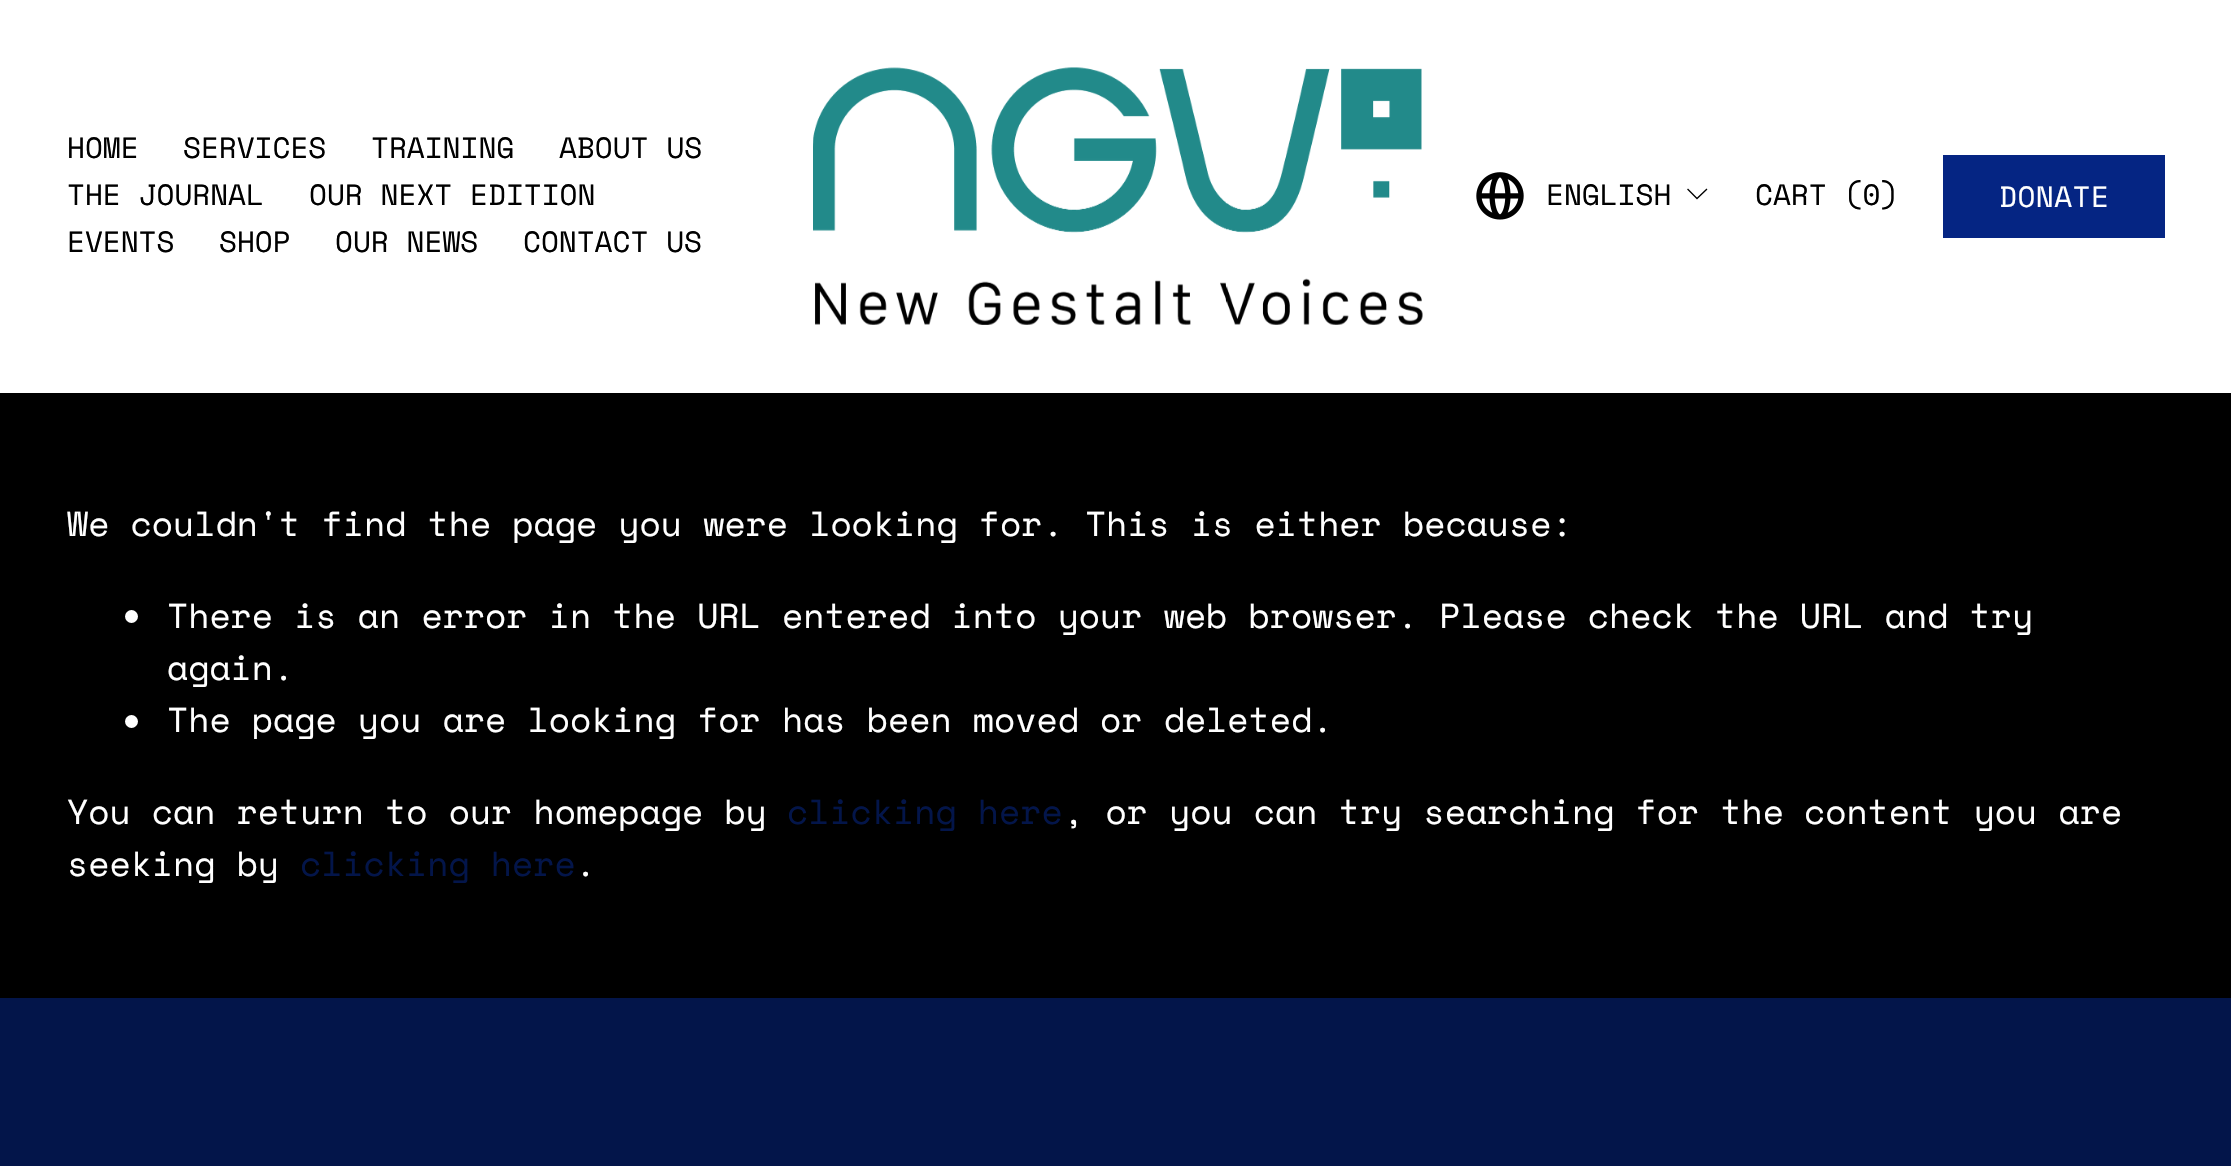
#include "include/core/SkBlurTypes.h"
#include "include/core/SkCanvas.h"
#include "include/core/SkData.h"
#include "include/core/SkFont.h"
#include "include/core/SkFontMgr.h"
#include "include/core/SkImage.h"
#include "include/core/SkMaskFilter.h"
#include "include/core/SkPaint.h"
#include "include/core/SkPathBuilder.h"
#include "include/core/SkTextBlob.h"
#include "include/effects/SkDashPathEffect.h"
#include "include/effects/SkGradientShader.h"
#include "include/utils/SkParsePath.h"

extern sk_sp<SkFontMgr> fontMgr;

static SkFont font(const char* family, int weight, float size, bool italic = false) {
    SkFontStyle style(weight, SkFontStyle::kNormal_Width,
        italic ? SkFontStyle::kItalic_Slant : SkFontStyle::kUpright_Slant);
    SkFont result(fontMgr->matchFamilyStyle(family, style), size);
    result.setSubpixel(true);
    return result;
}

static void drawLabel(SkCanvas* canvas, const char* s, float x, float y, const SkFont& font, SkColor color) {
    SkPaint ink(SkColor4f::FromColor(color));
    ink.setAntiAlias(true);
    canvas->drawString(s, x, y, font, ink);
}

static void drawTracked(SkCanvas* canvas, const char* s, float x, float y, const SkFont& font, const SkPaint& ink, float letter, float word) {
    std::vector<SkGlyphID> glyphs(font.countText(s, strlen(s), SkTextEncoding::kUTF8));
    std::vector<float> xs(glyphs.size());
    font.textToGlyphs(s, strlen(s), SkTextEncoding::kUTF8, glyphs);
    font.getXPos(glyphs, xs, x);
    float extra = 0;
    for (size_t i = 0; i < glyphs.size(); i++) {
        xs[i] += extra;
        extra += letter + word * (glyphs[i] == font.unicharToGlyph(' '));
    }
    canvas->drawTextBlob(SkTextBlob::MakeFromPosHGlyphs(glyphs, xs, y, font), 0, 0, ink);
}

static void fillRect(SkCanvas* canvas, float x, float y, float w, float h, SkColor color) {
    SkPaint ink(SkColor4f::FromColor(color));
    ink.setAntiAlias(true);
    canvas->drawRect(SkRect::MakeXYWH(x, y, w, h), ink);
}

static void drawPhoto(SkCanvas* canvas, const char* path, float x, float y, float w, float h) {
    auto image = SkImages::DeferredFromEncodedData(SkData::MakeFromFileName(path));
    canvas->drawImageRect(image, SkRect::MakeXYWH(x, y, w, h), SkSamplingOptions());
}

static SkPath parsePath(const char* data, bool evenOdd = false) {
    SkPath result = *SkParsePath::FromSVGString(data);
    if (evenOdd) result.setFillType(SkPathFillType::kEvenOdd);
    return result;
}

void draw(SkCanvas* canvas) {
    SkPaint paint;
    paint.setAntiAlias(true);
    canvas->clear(0xFF000000);
    fillRect(canvas, 0, 0, 2231, 393, 0xFFFFFFFF);
    SkFont font1 = font("Space Mono", 400, 29.25f);
    drawLabel(canvas, "HOME", 67, 158, font1, 0xFF000000);
    drawLabel(canvas, "SERVICES", 183, 158, font1, 0xFF000000);
    drawLabel(canvas, "TRAINING", 371, 158, font1, 0xFF000000);
    drawLabel(canvas, "ABOUT US", 559, 158, font1, 0xFF000000);
    drawLabel(canvas, "THE JOURNAL", 67, 205, font1, 0xFF000000);
    drawLabel(canvas, "OUR NEXT EDITION", 309, 205, font1, 0xFF000000);
    drawLabel(canvas, "EVENTS", 67, 252, font1, 0xFF000000);
    drawLabel(canvas, "SHOP", 219, 252, font1, 0xFF000000);
    drawLabel(canvas, "OUR NEWS", 335, 252, font1, 0xFF000000);
    drawLabel(canvas, "CONTACT US", 523, 252, font1, 0xFF000000);
    drawPhoto(canvas, "assets/img1.png", 813, 67, 610, 258);
    drawPhoto(canvas, "assets/img2.png", 1476, 172, 48, 48);
    drawLabel(canvas, "ENGLISH", 1546, 205, font1, 0xFF000000);
    paint.setStroke(true);
    paint.setStrokeWidth(1.3f);
    paint.setStrokeCap(SkPaint::kSquare_Cap);
    paint.setColor(0xFF000000);
    canvas->drawPath(parsePath("M1706.5 189.5L1697 198.5L1688 189.5"), paint);
    drawLabel(canvas, "CART (0)", 1755, 205, font1, 0xFF000000);
    fillRect(canvas, 1943, 155, 222, 83, 0xFF052583);
    paint.setStroke(false);
    paint.setColor(0xFFFFFFFF);
    drawTracked(canvas, "DONATE", 1999, 207, font1, paint, 0.5f, 0);
    SkFont font2 = font("Space Mono", 400, 34.65f);
    drawLabel(canvas, "We couldn't find the page you were looking for. This is either because:", 67, 536, font2, 0xFFFFFFFF);
    canvas->drawCircle(131.5f, 616.5f, 6.5f, paint);
    drawLabel(canvas, "There is an error in the URL entered into your web browser. Please check the URL and try", 167, 628, font2, 0xFFFFFFFF);
    drawLabel(canvas, "again.", 167, 680, font2, 0xFFFFFFFF);
    canvas->drawCircle(131.5f, 721.5f, 6.5f, paint);
    drawLabel(canvas, "The page you are looking for has been moved or deleted.", 167, 732, font2, 0xFFFFFFFF);
    drawLabel(canvas, "You can return to our homepage by", 67, 824, font2, 0xFFFFFFFF);
    drawLabel(canvas, "clicking here", 787, 824, font2, 0xFF03154A);
    drawLabel(canvas, ", or you can try searching for the", 1063, 824, font2, 0xFFFFFFFF);
    drawLabel(canvas, "content you are", 1804, 824, font2, 0xFFFFFFFF);
    drawLabel(canvas, "seeking by", 67, 876, font2, 0xFFFFFFFF);
    drawLabel(canvas, "clicking here", 300, 876, font2, 0xFF03154A);
    drawLabel(canvas, ".", 575, 876, font2, 0xFFFFFFFF);
    fillRect(canvas, 0, 998, 2231, 168, 0xFF03154A);
}
